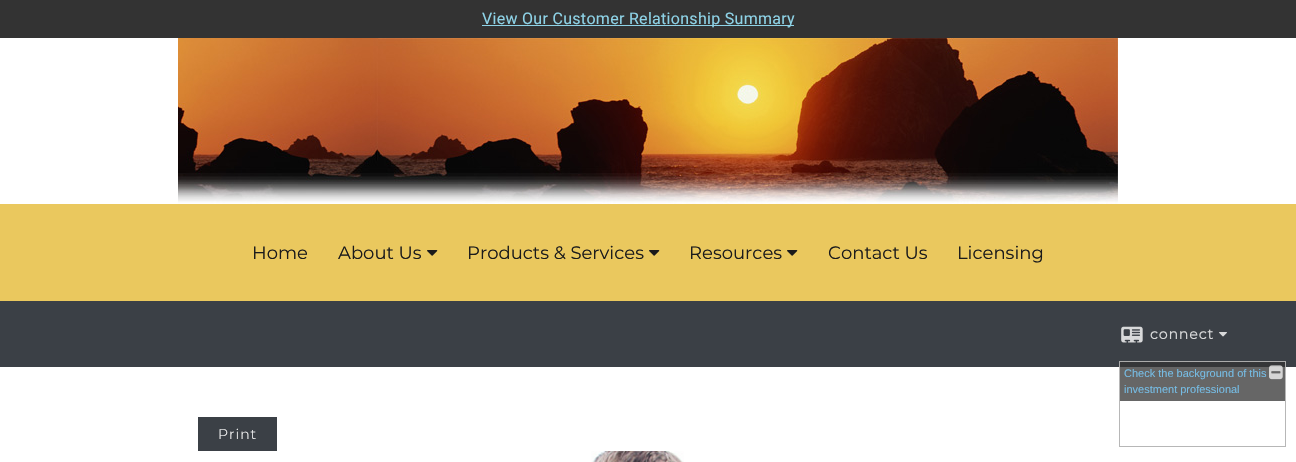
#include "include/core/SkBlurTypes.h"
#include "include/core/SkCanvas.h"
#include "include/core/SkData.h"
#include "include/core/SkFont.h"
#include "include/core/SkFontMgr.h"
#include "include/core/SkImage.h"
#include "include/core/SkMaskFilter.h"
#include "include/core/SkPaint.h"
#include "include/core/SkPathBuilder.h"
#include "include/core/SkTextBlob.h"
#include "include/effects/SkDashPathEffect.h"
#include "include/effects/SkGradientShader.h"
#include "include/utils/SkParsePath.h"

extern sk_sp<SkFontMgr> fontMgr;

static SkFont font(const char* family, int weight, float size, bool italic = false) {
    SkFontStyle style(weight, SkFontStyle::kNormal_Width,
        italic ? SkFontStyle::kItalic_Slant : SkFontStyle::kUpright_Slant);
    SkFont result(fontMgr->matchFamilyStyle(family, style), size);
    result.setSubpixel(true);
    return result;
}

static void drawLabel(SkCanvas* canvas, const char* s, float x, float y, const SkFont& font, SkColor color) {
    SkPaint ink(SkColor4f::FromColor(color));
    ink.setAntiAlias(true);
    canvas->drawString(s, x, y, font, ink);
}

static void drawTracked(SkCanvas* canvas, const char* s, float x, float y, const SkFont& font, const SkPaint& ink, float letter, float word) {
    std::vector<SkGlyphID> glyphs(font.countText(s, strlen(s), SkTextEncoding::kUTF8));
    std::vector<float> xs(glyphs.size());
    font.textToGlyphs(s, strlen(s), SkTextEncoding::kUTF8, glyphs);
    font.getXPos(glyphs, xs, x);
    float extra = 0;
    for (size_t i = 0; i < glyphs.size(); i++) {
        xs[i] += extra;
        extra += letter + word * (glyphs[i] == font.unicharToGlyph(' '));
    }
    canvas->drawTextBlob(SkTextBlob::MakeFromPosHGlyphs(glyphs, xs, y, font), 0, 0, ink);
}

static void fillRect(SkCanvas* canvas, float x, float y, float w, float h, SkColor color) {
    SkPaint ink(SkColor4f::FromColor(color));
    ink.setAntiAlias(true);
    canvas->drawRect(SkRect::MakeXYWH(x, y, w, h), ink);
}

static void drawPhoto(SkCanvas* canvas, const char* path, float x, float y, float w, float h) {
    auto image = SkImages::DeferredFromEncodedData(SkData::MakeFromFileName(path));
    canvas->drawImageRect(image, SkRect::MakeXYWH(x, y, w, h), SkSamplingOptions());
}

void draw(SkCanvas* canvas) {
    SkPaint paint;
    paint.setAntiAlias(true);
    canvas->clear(0xFF3B4046);
    fillRect(canvas, 0, 0, 1296, 38, 0xFF333333);
    fillRect(canvas, 482, 25, 312, 1, 0xFF8ED3E7);
    SkFont font1 = font("Roboto", 400, 16);
    paint.setColor(0xFF8ED3E7);
    drawTracked(canvas, "View Our Customer Relationship Summary", 482, 24, font1, paint, 0.3f, 0);
    fillRect(canvas, 0, 38, 1296, 166, 0xFFFFFFFF);
    drawPhoto(canvas, "assets/img1.png", 178, 38, 940, 166);
    fillRect(canvas, 0, 204, 1296, 97, 0xFFEAC85E);
    SkFont font2 = font("Montserrat", 400, 18);
    drawLabel(canvas, "Home", 252, 259, font2, 0xFF1A1A1B);
    drawLabel(canvas, "About Us", 338, 259, font2, 0xFF1A1A1B);
    drawPhoto(canvas, "assets/img2.png", 427, 250, 11, 6);
    drawLabel(canvas, "Products & Services", 467, 259, font2, 0xFF1A1A1B);
    drawPhoto(canvas, "assets/img2.png", 649, 250, 11, 6);
    drawLabel(canvas, "Resources", 689, 259, font2, 0xFF1A1A1B);
    drawPhoto(canvas, "assets/img2.png", 787, 250, 11, 6);
    drawLabel(canvas, "Contact Us", 828, 259, font2, 0xFF1A1A1B);
    drawLabel(canvas, "Licensing", 957, 259, font2, 0xFF1A1A1B);
    fillRect(canvas, 1119, 361, 167, 6, 0xFF353638);
    drawPhoto(canvas, "assets/img3.png", 1121, 326, 22, 17);
    SkFont font3 = font("Montserrat", 700, 14);
    paint.setColor(0xFFD8D9DA);
    drawTracked(canvas, "connect", 1150, 339, font3, paint, 1, 0);
    drawPhoto(canvas, "assets/img4.png", 1219, 332, 8, 5);
    fillRect(canvas, 0, 367, 1296, 95, 0xFFFFFFFF);
    fillRect(canvas, 1119, 367, 167, 80, 0xFF666666);
    fillRect(canvas, 198, 417, 79, 34, 0xFF3B4046);
    SkFont font4 = font("Montserrat", 300, 14);
    paint.setColor(0xFFFFFFFF);
    drawTracked(canvas, "Print", 218, 439, font4, paint, 1, 0);
    drawPhoto(canvas, "assets/img5.png", 591, 451, 93, 11);
    paint.setStroke(true);
    paint.setStrokeWidth(1);
    paint.setColor(0xBFD2D2D2);
    canvas->drawRect(SkRect::MakeXYWH(1119.5f, 361.5f, 166, 85), paint);
    SkFont font5 = font("Liberation Sans", 400, 11);
    drawLabel(canvas, "Check the background of this", 1124, 377, font5, 0xFF76BCE4);
    drawLabel(canvas, "investment professional", 1124, 393, font5, 0xFF76BCE4);
    drawPhoto(canvas, "assets/img6.png", 1269, 365, 14, 15);
    fillRect(canvas, 1120, 401, 165, 45, 0xFFFFFFFF);
}
